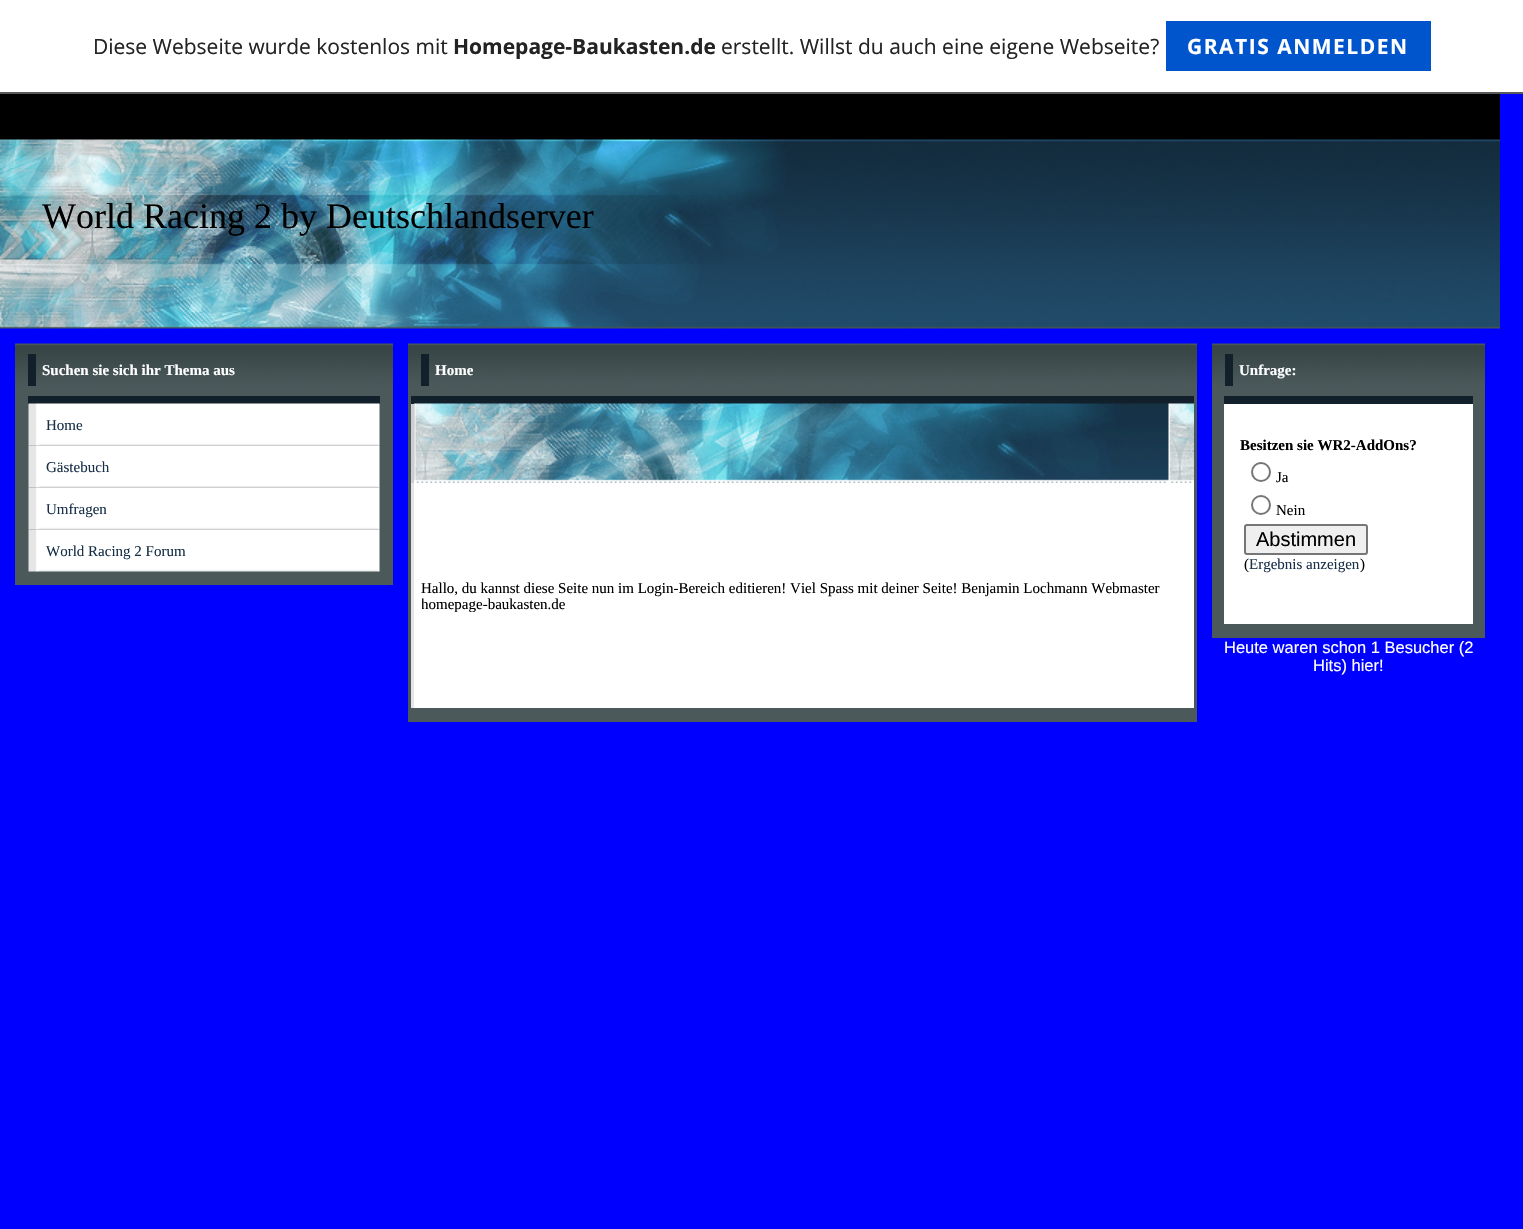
#include "include/core/SkBlurTypes.h"
#include "include/core/SkCanvas.h"
#include "include/core/SkData.h"
#include "include/core/SkFont.h"
#include "include/core/SkFontMgr.h"
#include "include/core/SkImage.h"
#include "include/core/SkMaskFilter.h"
#include "include/core/SkPaint.h"
#include "include/core/SkPathBuilder.h"
#include "include/core/SkTextBlob.h"
#include "include/effects/SkDashPathEffect.h"
#include "include/effects/SkGradientShader.h"
#include "include/utils/SkParsePath.h"

extern sk_sp<SkFontMgr> fontMgr;

static SkFont font(const char* family, int weight, float size, bool italic = false) {
    SkFontStyle style(weight, SkFontStyle::kNormal_Width,
        italic ? SkFontStyle::kItalic_Slant : SkFontStyle::kUpright_Slant);
    SkFont result(fontMgr->matchFamilyStyle(family, style), size);
    result.setSubpixel(true);
    return result;
}

static void drawLabel(SkCanvas* canvas, const char* s, float x, float y, const SkFont& font, SkColor color) {
    SkPaint ink(SkColor4f::FromColor(color));
    ink.setAntiAlias(true);
    canvas->drawString(s, x, y, font, ink);
}

static void drawTracked(SkCanvas* canvas, const char* s, float x, float y, const SkFont& font, const SkPaint& ink, float letter, float word) {
    std::vector<SkGlyphID> glyphs(font.countText(s, strlen(s), SkTextEncoding::kUTF8));
    std::vector<float> xs(glyphs.size());
    font.textToGlyphs(s, strlen(s), SkTextEncoding::kUTF8, glyphs);
    font.getXPos(glyphs, xs, x);
    float extra = 0;
    for (size_t i = 0; i < glyphs.size(); i++) {
        xs[i] += extra;
        extra += letter + word * (glyphs[i] == font.unicharToGlyph(' '));
    }
    canvas->drawTextBlob(SkTextBlob::MakeFromPosHGlyphs(glyphs, xs, y, font), 0, 0, ink);
}

static void fillRect(SkCanvas* canvas, float x, float y, float w, float h, SkColor color) {
    SkPaint ink(SkColor4f::FromColor(color));
    ink.setAntiAlias(true);
    canvas->drawRect(SkRect::MakeXYWH(x, y, w, h), ink);
}

static void drawPhoto(SkCanvas* canvas, const char* path, float x, float y, float w, float h) {
    auto image = SkImages::DeferredFromEncodedData(SkData::MakeFromFileName(path));
    canvas->drawImageRect(image, SkRect::MakeXYWH(x, y, w, h), SkSamplingOptions());
}

void draw(SkCanvas* canvas) {
    SkPaint paint;
    paint.setAntiAlias(true);
    canvas->clear(0xFF0000FF);
    fillRect(canvas, 0, 0, 1523, 92, 0xFFFFFFFF);
    fillRect(canvas, 0, 92, 1523, 2, 0xFF5A5A5A);
    SkFont font1 = font("Open Sans", 400, 21);
    drawLabel(canvas, "Diese Webseite wurde kostenlos mit", 93, 54, font1, 0xFF232323);
    SkFont font2 = font("Open Sans", 700, 21);
    drawLabel(canvas, "Homepage-Baukasten.de", 453, 54, font2, 0xFF232323);
    drawLabel(canvas, "erstellt. Willst du auch eine eigene Webseite?", 721, 54, font1, 0xFF232323);
    fillRect(canvas, 1166, 21, 265, 50, 0xFF0055CC);
    paint.setColor(0xFFFFFFFF);
    drawTracked(canvas, "GRATIS ANMELDEN", 1187, 54, font2, paint, 1.5f, 0);
    drawPhoto(canvas, "assets/img1.png", 0, 94, 1500, 235);
    SkFont font3 = font("Liberation Serif", 400, 36);
    drawLabel(canvas, "World Racing 2 by Deutschlandserver", 42, 228, font3, 0xFF000000);
    drawPhoto(canvas, "assets/img2.png", 15, 343, 378, 53);
    fillRect(canvas, 28, 354, 8, 32, 0xFF11202A);
    SkFont font4 = font("Liberation Serif", 700, 15);
    drawLabel(canvas, "Suchen sie sich ihr Thema aus", 42, 375, font4, 0xFFFFFFFF);
    fillRect(canvas, 15, 396, 378, 189, 0xFF4B595B);
    fillRect(canvas, 28, 396, 352, 8, 0xFF11202A);
    drawPhoto(canvas, "assets/img3.png", 28, 403, 352, 43);
    SkFont font5 = font("Liberation Serif", 400, 15);
    drawLabel(canvas, "Home", 46, 430, font5, 0xFF172F47);
    drawPhoto(canvas, "assets/img4.png", 28, 445, 352, 43);
    drawLabel(canvas, "Gästebuch", 46, 472, font5, 0xFF172F47);
    drawPhoto(canvas, "assets/img4.png", 28, 487, 352, 43);
    drawLabel(canvas, "Umfragen", 46, 514, font5, 0xFF172F47);
    drawPhoto(canvas, "assets/img4.png", 28, 529, 352, 43);
    drawLabel(canvas, "World Racing 2 Forum", 46, 556, font5, 0xFF172F47);
    drawPhoto(canvas, "assets/img5.png", 408, 343, 789, 53);
    fillRect(canvas, 421, 354, 8, 32, 0xFF11202A);
    drawLabel(canvas, "Home", 435, 375, font4, 0xFFFFFFFF);
    fillRect(canvas, 408, 396, 789, 326, 0xFF4B595B);
    fillRect(canvas, 411, 396, 783, 8, 0xFF11202A);
    fillRect(canvas, 411, 404, 3, 79, 0xFFCECECE);
    drawPhoto(canvas, "assets/img6.png", 414, 403, 780, 80);
    fillRect(canvas, 411, 483, 3, 225, 0xFFE5E5E5);
    fillRect(canvas, 414, 483, 780, 225, 0xFFFFFFFF);
    drawLabel(canvas, "Hallo, du kannst diese Seite nun im Login-Bereich editieren! Viel Spass mit deiner Seite! Benjamin Lochmann Webmaster", 421, 593, font5, 0xFF000000);
    canvas->save();
    canvas->clipRect(SkRect::MakeXYWH(422, 579, 765, 33));
    drawLabel(canvas, "homepage-baukasten.de", 421, 609, font5, 0xFF000000);
    canvas->restore();
    drawPhoto(canvas, "assets/img7.png", 1212, 343, 273, 53);
    fillRect(canvas, 1225, 354, 8, 32, 0xFF11202A);
    drawLabel(canvas, "Unfrage:", 1239, 375, font4, 0xFFFFFFFF);
    fillRect(canvas, 1212, 396, 273, 242, 0xFF4B595B);
    fillRect(canvas, 1224, 396, 249, 8, 0xFF11202A);
    fillRect(canvas, 1224, 404, 249, 220, 0xFFFFFFFF);
    drawLabel(canvas, "Besitzen sie WR2-AddOns?", 1240, 450, font4, 0xFF000000);
    paint.setStroke(true);
    paint.setStrokeWidth(2);
    paint.setColor(0xFF767676);
    canvas->drawCircle(1261, 472, 9, paint);
    drawLabel(canvas, "Ja", 1276, 482, font5, 0xFF000000);
    canvas->drawCircle(1261, 505, 9, paint);
    drawLabel(canvas, "Nein", 1276, 515, font5, 0xFF000000);
    paint.setStroke(false);
    paint.setColor(0xFFEFEFEF);
    canvas->drawRoundRect(SkRect::MakeXYWH(1245, 525, 122, 29), 2, 2, paint);
    paint.setStroke(true);
    paint.setColor(0xFF767676);
    canvas->drawRoundRect(SkRect::MakeXYWH(1245, 525, 122, 29), 2, 2, paint);
    SkFont font6 = font("Liberation Sans", 400, 20);
    drawLabel(canvas, "Abstimmen", 1256, 546, font6, 0xFF000000);
    drawLabel(canvas, "(", 1244, 569, font5, 0xFF000000);
    drawLabel(canvas, "Ergebnis anzeigen", 1249, 569, font5, 0xFF172F47);
    drawLabel(canvas, ")", 1360, 569, font5, 0xFF000000);
    SkFont font7 = font("Liberation Sans", 400, 16.5f);
    drawLabel(canvas, "Heute waren schon 1 Besucher (2", 1224, 653, font7, 0xFFFFFFFF);
    drawLabel(canvas, "Hits) hier!", 1313, 671, font7, 0xFFFFFFFF);
}
